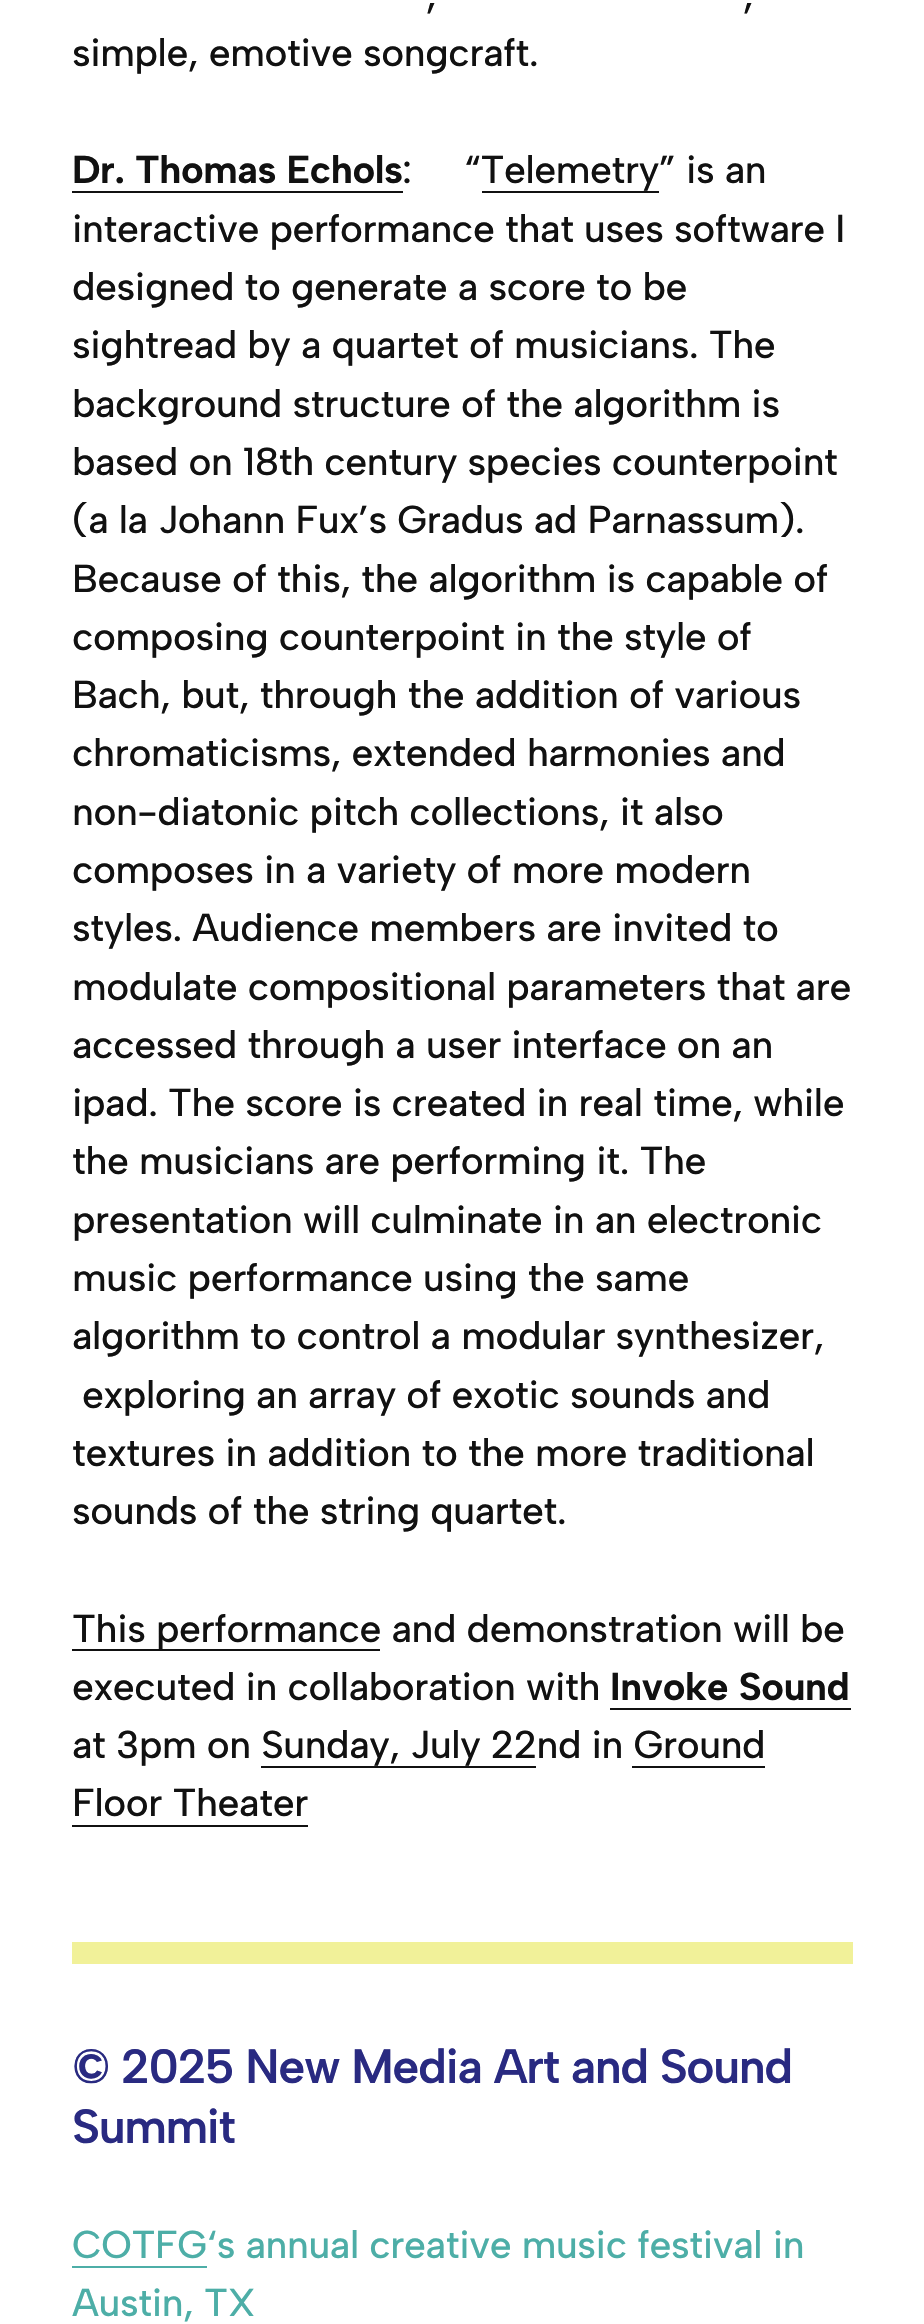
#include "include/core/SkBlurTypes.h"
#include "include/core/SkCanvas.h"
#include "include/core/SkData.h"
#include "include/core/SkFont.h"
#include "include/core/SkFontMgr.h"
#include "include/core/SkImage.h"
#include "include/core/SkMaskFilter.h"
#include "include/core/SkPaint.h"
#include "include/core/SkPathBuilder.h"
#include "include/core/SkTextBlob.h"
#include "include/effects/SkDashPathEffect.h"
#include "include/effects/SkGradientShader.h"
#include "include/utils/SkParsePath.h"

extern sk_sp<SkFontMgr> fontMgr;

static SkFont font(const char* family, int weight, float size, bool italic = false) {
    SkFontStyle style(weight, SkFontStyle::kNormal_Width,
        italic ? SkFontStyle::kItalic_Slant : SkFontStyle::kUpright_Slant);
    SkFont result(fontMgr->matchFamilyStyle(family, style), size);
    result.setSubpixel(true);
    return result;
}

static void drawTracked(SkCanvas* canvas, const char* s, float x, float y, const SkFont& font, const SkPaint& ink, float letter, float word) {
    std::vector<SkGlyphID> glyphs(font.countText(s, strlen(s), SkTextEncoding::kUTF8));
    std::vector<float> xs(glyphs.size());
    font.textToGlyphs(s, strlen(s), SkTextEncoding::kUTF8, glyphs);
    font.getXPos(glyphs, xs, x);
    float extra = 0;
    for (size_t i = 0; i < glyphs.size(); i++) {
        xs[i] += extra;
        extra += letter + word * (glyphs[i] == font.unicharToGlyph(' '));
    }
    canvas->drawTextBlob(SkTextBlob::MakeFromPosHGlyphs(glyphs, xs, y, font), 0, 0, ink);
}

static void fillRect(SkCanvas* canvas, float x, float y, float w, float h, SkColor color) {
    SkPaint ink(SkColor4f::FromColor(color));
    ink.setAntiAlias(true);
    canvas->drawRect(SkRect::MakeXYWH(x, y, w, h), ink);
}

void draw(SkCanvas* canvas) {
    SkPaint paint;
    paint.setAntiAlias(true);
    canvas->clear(0xFFFFFFFF);
    SkFont font1 = font("Albert Sans", 500, 38.9f);
    paint.setColor(0xFF111111);
    drawTracked(canvas, ",", 426, 8, font1, paint, -0.4f, 0);
    drawTracked(canvas, ",", 743, 8, font1, paint, -0.4f, 0);
    drawTracked(canvas, "simple, emotive songcraft.", 72, 66, font1, paint, -0.4f, 0);
    SkFont font2 = font("Albert Sans", 700, 38.9f);
    drawTracked(canvas, "Dr. Thomas Echols", 72, 183, font2, paint, -0.4f, 0);
    fillRect(canvas, 72, 191, 331, 2, 0xFF111111);
    drawTracked(canvas, ":     “Telemetry” is an", 402, 183, font1, paint, -0.4f, 0);
    fillRect(canvas, 482, 191, 177, 2, 0xFF111111);
    drawTracked(canvas, "interactive performance that uses software I", 72, 242, font1, paint, -0.4f, 0);
    drawTracked(canvas, "designed to generate a score to be", 72, 300, font1, paint, -0.4f, 0);
    drawTracked(canvas, "sightread by a quartet of musicians. The", 72, 358, font1, paint, -0.4f, 0);
    drawTracked(canvas, "background structure of the algorithm is", 72, 417, font1, paint, -0.4f, 0);
    drawTracked(canvas, "based on 18th century species counterpoint", 72, 475, font1, paint, -0.4f, 0);
    drawTracked(canvas, "(a la Johann Fux’s Gradus ad Parnassum).", 72, 533, font1, paint, -0.4f, 0);
    drawTracked(canvas, "Because of this, the algorithm is capable of", 72, 592, font1, paint, -0.4f, 0);
    drawTracked(canvas, "composing counterpoint in the style of", 72, 650, font1, paint, -0.4f, 0);
    drawTracked(canvas, "Bach, but, through the addition of various", 72, 708, font1, paint, -0.4f, 0);
    drawTracked(canvas, "chromaticisms, extended harmonies and", 72, 766, font1, paint, -0.4f, 0);
    drawTracked(canvas, "non-diatonic pitch collections, it also", 72, 825, font1, paint, -0.4f, 0);
    drawTracked(canvas, "composes in a variety of more modern", 72, 883, font1, paint, -0.4f, 0);
    drawTracked(canvas, "styles. Audience members are invited to", 72, 941, font1, paint, -0.4f, 0);
    drawTracked(canvas, "modulate compositional parameters that are", 72, 1000, font1, paint, -0.4f, 0);
    drawTracked(canvas, "accessed through a user interface on an", 72, 1058, font1, paint, -0.4f, 0);
    drawTracked(canvas, "ipad. The score is created in real time, while", 72, 1116, font1, paint, -0.4f, 0);
    drawTracked(canvas, "the musicians are performing it. The", 72, 1174, font1, paint, -0.4f, 0);
    drawTracked(canvas, "presentation will culminate in an electronic", 72, 1233, font1, paint, -0.4f, 0);
    drawTracked(canvas, "music performance using the same", 72, 1291, font1, paint, -0.4f, 0);
    drawTracked(canvas, "algorithm to control a modular synthesizer,", 72, 1349, font1, paint, -0.4f, 0);
    drawTracked(canvas, "exploring an array of exotic sounds and", 82, 1408, font1, paint, -0.4f, 0);
    drawTracked(canvas, "textures in addition to the more traditional", 72, 1466, font1, paint, -0.4f, 0);
    drawTracked(canvas, "sounds of the string quartet.", 72, 1524, font1, paint, -0.4f, 0);
    fillRect(canvas, 72, 1649, 308, 2, 0xFF111111);
    drawTracked(canvas, "This performance and demonstration will be", 72, 1642, font1, paint, -0.4f, 0);
    drawTracked(canvas, "executed in collaboration with", 72, 1700, font1, paint, -0.4f, 0);
    drawTracked(canvas, "Invoke Sound", 610, 1700, font2, paint, -0.4f, 0);
    fillRect(canvas, 610, 1708, 241, 2, 0xFF111111);
    drawTracked(canvas, "at 3pm on Sunday, July 22nd in Ground", 72, 1758, font1, paint, -0.4f, 0);
    fillRect(canvas, 261, 1766, 275, 2, 0xFF111111);
    drawTracked(canvas, "Floor Theater", 72, 1816, font1, paint, -0.4f, 0);
    fillRect(canvas, 632, 1766, 133, 2, 0xFF111111);
    fillRect(canvas, 72, 1825, 236, 2, 0xFF111111);
    fillRect(canvas, 72, 1942, 781, 22, 0xFFF1F199);
    SkFont font3 = font("Albert Sans", 600, 48.2f);
    paint.setColor(0xFF292A81);
    drawTracked(canvas, "© 2025 New Media Art and Sound", 72, 2083, font3, paint, -1.45f, 0);
    drawTracked(canvas, "Summit", 72, 2143, font3, paint, -1.45f, 0);
    paint.setColor(0xFF4DAEA7);
    drawTracked(canvas, "COTFG‘s annual creative music festival in", 72, 2258, font1, paint, -0.4f, 0);
    fillRect(canvas, 72, 2266, 135, 2, 0xFF4DAEA7);
    drawTracked(canvas, "Austin, TX", 72, 2316, font1, paint, -0.4f, 0);
}
